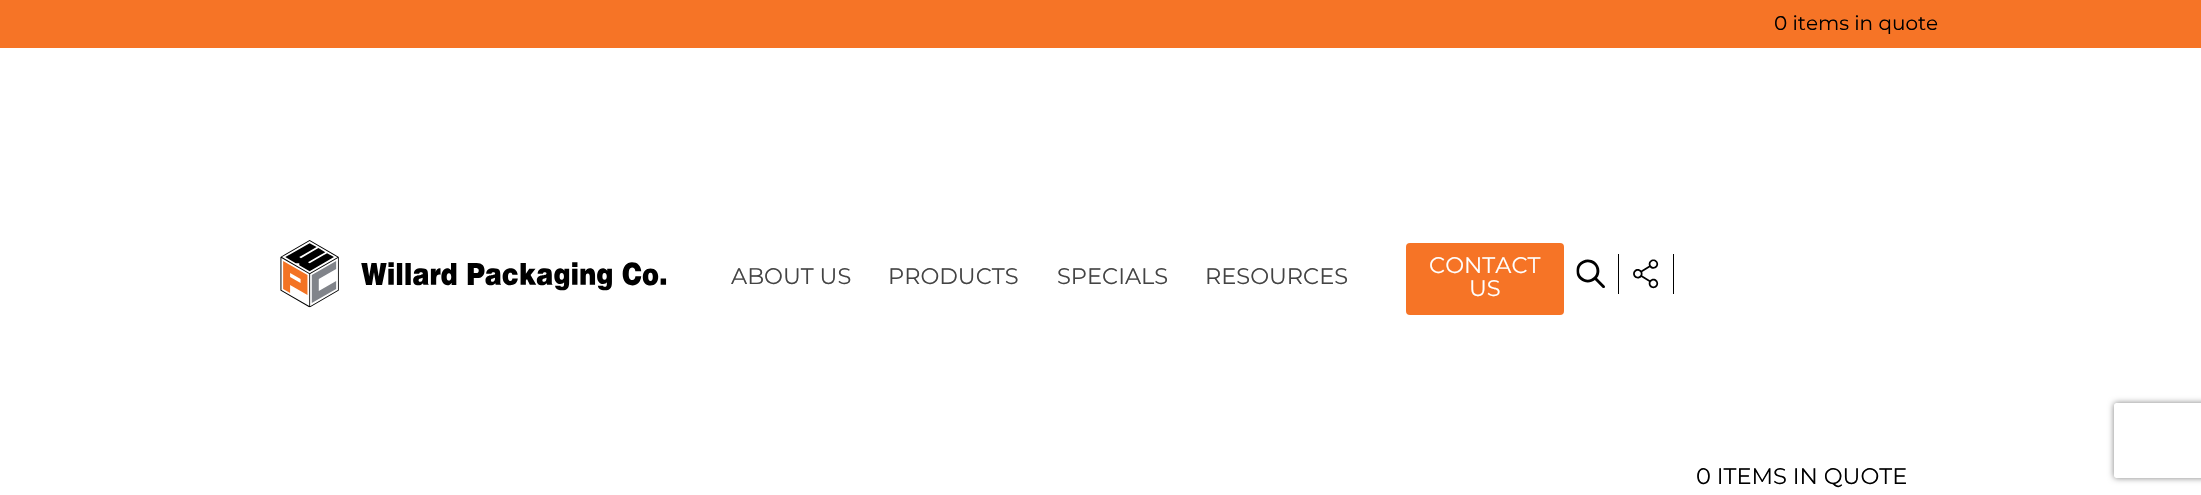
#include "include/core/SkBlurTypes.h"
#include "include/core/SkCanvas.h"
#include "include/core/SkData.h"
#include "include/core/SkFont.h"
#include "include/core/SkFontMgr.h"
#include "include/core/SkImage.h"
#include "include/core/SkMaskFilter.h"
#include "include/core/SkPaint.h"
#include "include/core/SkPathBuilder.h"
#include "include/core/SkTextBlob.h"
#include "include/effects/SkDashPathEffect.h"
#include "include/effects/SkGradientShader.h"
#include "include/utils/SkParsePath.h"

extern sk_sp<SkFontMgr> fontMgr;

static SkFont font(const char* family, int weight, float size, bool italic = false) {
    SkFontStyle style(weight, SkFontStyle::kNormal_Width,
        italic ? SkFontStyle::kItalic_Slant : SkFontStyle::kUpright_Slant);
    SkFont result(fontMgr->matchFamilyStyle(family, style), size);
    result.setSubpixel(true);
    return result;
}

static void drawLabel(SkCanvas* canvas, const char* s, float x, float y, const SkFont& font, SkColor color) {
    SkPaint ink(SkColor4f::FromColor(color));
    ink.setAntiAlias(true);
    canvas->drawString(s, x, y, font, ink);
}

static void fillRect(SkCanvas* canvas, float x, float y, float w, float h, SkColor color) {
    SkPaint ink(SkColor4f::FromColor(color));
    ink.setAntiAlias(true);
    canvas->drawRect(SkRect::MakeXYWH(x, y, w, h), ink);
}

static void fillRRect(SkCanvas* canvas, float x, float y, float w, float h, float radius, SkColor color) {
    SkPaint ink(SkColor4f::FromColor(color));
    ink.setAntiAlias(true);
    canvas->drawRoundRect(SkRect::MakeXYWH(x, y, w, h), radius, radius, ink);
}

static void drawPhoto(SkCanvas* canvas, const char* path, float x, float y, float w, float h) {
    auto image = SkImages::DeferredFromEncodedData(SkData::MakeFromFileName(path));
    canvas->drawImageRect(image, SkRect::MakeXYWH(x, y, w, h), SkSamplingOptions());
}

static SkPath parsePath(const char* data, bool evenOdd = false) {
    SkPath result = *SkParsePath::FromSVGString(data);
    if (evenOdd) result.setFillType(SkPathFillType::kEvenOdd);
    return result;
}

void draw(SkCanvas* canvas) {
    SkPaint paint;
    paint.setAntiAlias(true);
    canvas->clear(0xFFFFFFFF);
    fillRect(canvas, 0, 0, 2201, 48, 0xFFF67426);
    SkFont font1 = font("Montserrat", 400, 20);
    drawLabel(canvas, "0 items in quote", 1774, 30, font1, 0xFF000000);
    drawPhoto(canvas, "assets/img1.png", 280, 240, 387, 68);
    SkFont font2 = font("Montserrat", 400, 22.5f);
    drawLabel(canvas, "ABOUT US", 731, 284, font2, 0xFF444444);
    drawLabel(canvas, "PRODUCTS", 888, 284, font2, 0xFF444444);
    drawLabel(canvas, "SPECIALS", 1057, 284, font2, 0xFF444444);
    drawLabel(canvas, "RESOURCES", 1205, 284, font2, 0xFF444444);
    fillRRect(canvas, 1406, 243, 158, 72, 4, 0xFFF67426);
    drawLabel(canvas, "CONTACT", 1429, 273, font2, 0xFFFFFFFF);
    drawLabel(canvas, "US", 1469, 296, font2, 0xFFFFFFFF);
    fillRect(canvas, 1618, 254, 1, 40, 0xFF000000);
    drawPhoto(canvas, "assets/img2.png", 1576, 259, 29, 29);
    fillRect(canvas, 1673, 254, 1, 40, 0xFF000000);
    drawPhoto(canvas, "assets/img3.png", 1633, 259, 26, 30);
    drawLabel(canvas, "0 ITEMS IN QUOTE", 1696, 484, font2, 0xFF000000);
    canvas->save();
    canvas->clipPath(parsePath("M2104 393H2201V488H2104ZM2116.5 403H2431.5C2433 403 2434 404 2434 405.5V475.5C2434 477 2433 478 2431.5 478H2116.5C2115 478 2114 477 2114 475.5V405.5C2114 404 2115 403 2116.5 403Z", true), true);
    paint.setColor(0xFF808080);
    paint.setMaskFilter(SkMaskFilter::MakeBlur(kNormal_SkBlurStyle, 3));
    canvas->drawRoundRect(SkRect::MakeXYWH(2114, 403, 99, 75), 2.5f, 2.5f, paint);
    paint.setMaskFilter(nullptr);
    canvas->restore();
}
